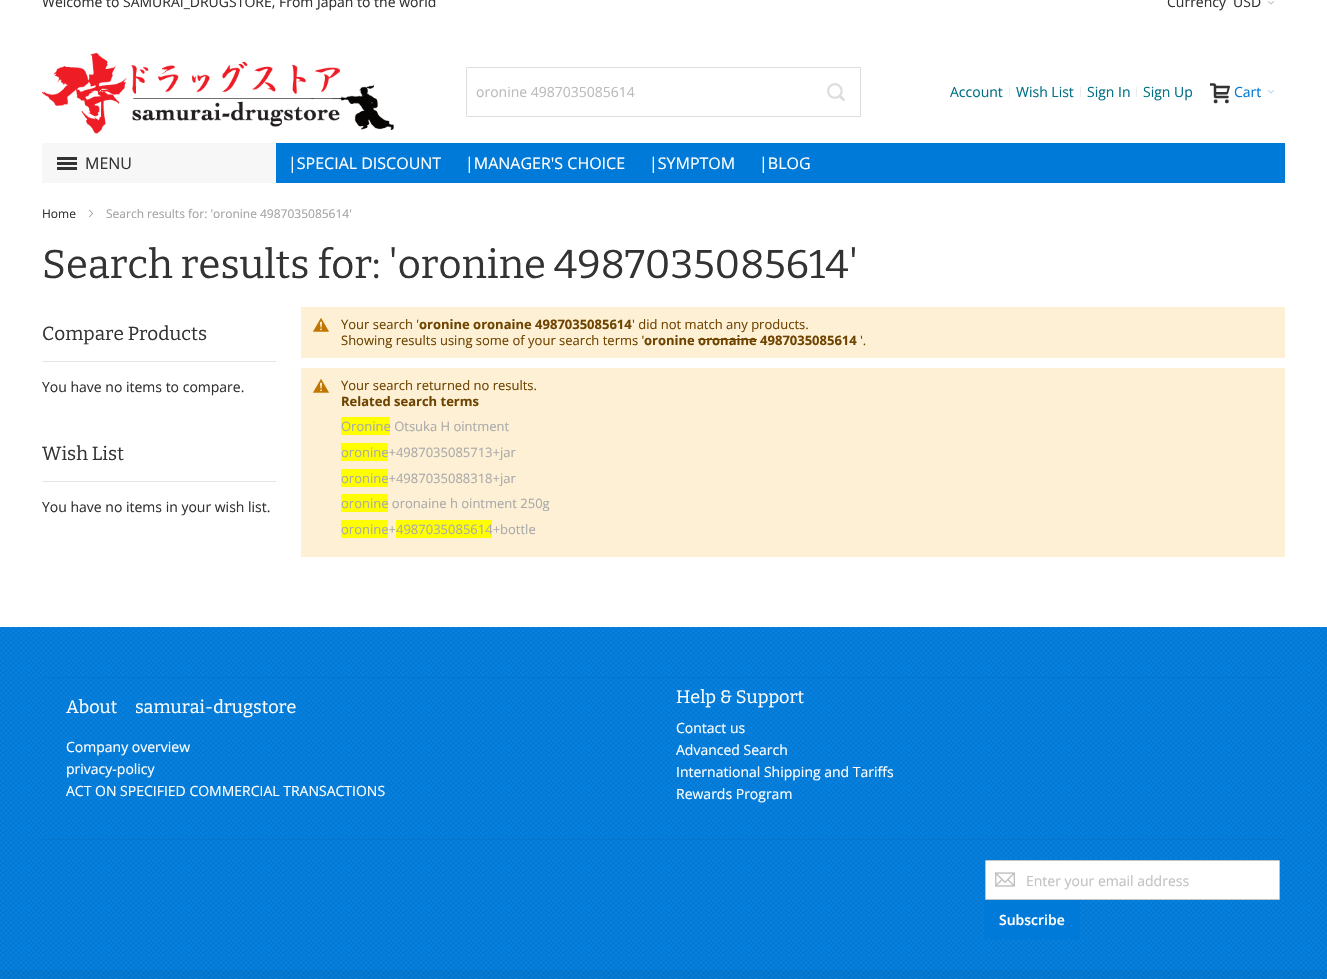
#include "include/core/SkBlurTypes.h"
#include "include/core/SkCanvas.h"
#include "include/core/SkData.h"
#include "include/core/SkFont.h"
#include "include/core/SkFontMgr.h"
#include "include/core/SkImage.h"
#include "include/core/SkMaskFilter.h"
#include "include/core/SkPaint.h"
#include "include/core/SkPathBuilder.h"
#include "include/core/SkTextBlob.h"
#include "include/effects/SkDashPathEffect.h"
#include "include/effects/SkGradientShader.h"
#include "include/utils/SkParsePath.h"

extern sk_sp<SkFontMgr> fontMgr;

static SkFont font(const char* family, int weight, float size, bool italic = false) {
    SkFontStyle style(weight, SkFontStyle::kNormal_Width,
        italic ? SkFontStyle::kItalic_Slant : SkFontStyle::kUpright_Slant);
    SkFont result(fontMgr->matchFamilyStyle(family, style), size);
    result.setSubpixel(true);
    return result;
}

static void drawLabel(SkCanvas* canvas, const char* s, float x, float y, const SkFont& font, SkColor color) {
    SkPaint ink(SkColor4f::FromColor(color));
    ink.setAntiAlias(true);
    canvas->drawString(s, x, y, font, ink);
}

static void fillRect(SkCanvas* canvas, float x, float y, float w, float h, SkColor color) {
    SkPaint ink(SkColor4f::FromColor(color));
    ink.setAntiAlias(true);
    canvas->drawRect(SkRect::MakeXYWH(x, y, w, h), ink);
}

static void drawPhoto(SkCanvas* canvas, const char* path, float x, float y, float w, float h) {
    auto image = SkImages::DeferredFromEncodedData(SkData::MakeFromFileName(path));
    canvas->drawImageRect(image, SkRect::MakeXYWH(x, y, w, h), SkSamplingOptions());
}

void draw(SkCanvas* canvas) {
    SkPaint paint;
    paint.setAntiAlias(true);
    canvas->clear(0xFFFFFFFF);
    SkFont font1 = font("Open Sans", 400, 14);
    drawLabel(canvas, "Welcome to SAMURAI_DRUGSTORE, From Japan to the world", 42, 7, font1, 0xFF333333);
    drawLabel(canvas, "Currency", 1167, 7, font1, 0xFF333333);
    drawLabel(canvas, "USD", 1233, 7, font1, 0xFF333333);
    drawPhoto(canvas, "assets/img1.png", 1267, 1, 8, 4);
    drawPhoto(canvas, "assets/img2.png", 42, 53, 353, 81);
    paint.setStroke(true);
    paint.setStrokeWidth(1);
    paint.setColor(0xFFDDDDDD);
    canvas->drawRoundRect(SkRect::MakeXYWH(466.5f, 67.5f, 394, 49), 0.5f, 0.5f, paint);
    drawLabel(canvas, "oronine 4987035085614", 476, 97, font1, 0xFFBBBBBB);
    drawPhoto(canvas, "assets/img3.png", 827, 83, 18, 18);
    drawLabel(canvas, "Account", 950, 97, font1, 0xFF007185);
    fillRect(canvas, 1009, 87, 1, 10, 0xFFEBEBEB);
    drawLabel(canvas, "Wish List", 1016, 97, font1, 0xFF007185);
    fillRect(canvas, 1080, 87, 1, 10, 0xFFEBEBEB);
    drawLabel(canvas, "Sign In", 1087, 97, font1, 0xFF007185);
    fillRect(canvas, 1136, 87, 1, 10, 0xFFEBEBEB);
    drawLabel(canvas, "Sign Up", 1143, 97, font1, 0xFF007185);
    drawPhoto(canvas, "assets/img4.png", 1210, 83, 20, 21);
    drawLabel(canvas, "Cart", 1234, 97, font1, 0xFF007AD8);
    drawPhoto(canvas, "assets/img5.png", 1267, 90, 8, 4);
    fillRect(canvas, 276, 143, 1009, 40, 0xFF007AD8);
    fillRect(canvas, 42, 143, 234, 40, 0xFFF7F7F7);
    fillRect(canvas, 57, 157, 20, 3, 0xFF333333);
    fillRect(canvas, 57, 162, 20, 3, 0xFF333333);
    fillRect(canvas, 57, 167, 20, 3, 0xFF333333);
    SkFont font2 = font("Open Sans", 400, 16);
    drawLabel(canvas, "MENU", 85, 169, font2, 0xFF333333);
    drawLabel(canvas, "|SPECIAL DISCOUNT", 288, 169, font2, 0xFFFFFFFF);
    drawLabel(canvas, "|MANAGER'S CHOICE", 465, 169, font2, 0xFFFFFFFF);
    drawLabel(canvas, "|SYMPTOM", 649, 169, font2, 0xFFFFFFFF);
    drawLabel(canvas, "|BLOG", 759, 169, font2, 0xFFFFFFFF);
    SkFont font3 = font("Open Sans", 400, 12);
    drawLabel(canvas, "Home", 42, 218, font3, 0xFF333333);
    drawPhoto(canvas, "assets/img6.png", 88, 209, 6, 9);
    drawLabel(canvas, "Search results for: 'oronine 4987035085614'", 106, 218, font3, 0xFFA3A3A3);
    SkFont font4 = font("Bitter", 100, 40);
    drawLabel(canvas, "Search results for: 'oronine 4987035085614'", 42, 278, font4, 0xFF333333);
    fillRect(canvas, 42, 361, 234, 1, 0xFFE5E5E5);
    SkFont font5 = font("Bitter", 100, 19);
    drawLabel(canvas, "Compare Products", 42, 340, font5, 0xFF333333);
    drawLabel(canvas, "You have no items to compare.", 42, 392, font1, 0xFF333333);
    fillRect(canvas, 42, 481, 234, 1, 0xFFE5E5E5);
    drawLabel(canvas, "Wish List", 42, 460, font5, 0xFF333333);
    drawLabel(canvas, "You have no items in your wish list.", 42, 512, font1, 0xFF333333);
    fillRect(canvas, 301, 307, 984, 51, 0xFFFDF0D5);
    SkFont font6 = font("Open Sans", 400, 13);
    drawLabel(canvas, "Your search '", 341, 329, font6, 0xFF6F4400);
    drawPhoto(canvas, "assets/img7.png", 313, 318, 16, 14);
    SkFont font7 = font("Open Sans", 700, 13);
    drawLabel(canvas, "oronine oronaine 4987035085614", 419, 329, font7, 0xFF6F4400);
    drawLabel(canvas, "' did not match any products.", 632, 329, font6, 0xFF6F4400);
    drawLabel(canvas, "Showing results using some of your search terms '", 341, 345, font6, 0xFF6F4400);
    drawLabel(canvas, "oronine oronaine 4987035085614", 644, 345, font7, 0xFF6F4400);
    fillRect(canvas, 698, 339, 59, 1, 0xFF6F4400);
    drawLabel(canvas, "'.", 860, 345, font6, 0xFF6F4400);
    fillRect(canvas, 301, 368, 984, 189, 0xFFFDF0D5);
    drawPhoto(canvas, "assets/img7.png", 313, 379, 16, 14);
    drawLabel(canvas, "Your search returned no results.", 341, 390, font6, 0xFF6F4400);
    drawLabel(canvas, "Related search terms", 341, 406, font7, 0xFF6F4400);
    fillRect(canvas, 341, 417, 49, 18, 0xFFFFFF00);
    drawLabel(canvas, "Oronine Otsuka H ointment", 341, 431, font6, 0xFFAAAAAA);
    fillRect(canvas, 341, 443, 47, 18, 0xFFFFFF00);
    drawLabel(canvas, "oronine+4987035085713+jar", 341, 457, font6, 0xFFAAAAAA);
    fillRect(canvas, 341, 469, 47, 18, 0xFFFFFF00);
    drawLabel(canvas, "oronine+4987035088318+jar", 341, 483, font6, 0xFFAAAAAA);
    fillRect(canvas, 341, 494, 47, 18, 0xFFFFFF00);
    drawLabel(canvas, "oronine oronaine h ointment 250g", 341, 508, font6, 0xFFAAAAAA);
    fillRect(canvas, 341, 520, 47, 18, 0xFFFFFF00);
    drawLabel(canvas, "oronine+", 341, 534, font6, 0xFFAAAAAA);
    fillRect(canvas, 396, 520, 96, 18, 0xFFFFFF00);
    drawLabel(canvas, "4987035085614+bottle", 396, 534, font6, 0xFFAAAAAA);
    fillRect(canvas, 0, 627, 1327, 352, 0xFF007AD8);
    drawPhoto(canvas, "assets/img8.png", 0, 627, 1327, 352);
    drawPhoto(canvas, "assets/img9.png", 0, 627, 1327, 352);
    fillRect(canvas, 42, 677, 1243, 1, 0x0D000000);
    SkFont font8 = font("Bitter", 100, 18);
    drawLabel(canvas, "About", 66, 713, font8, 0xFFFFFFFF);
    drawLabel(canvas, "samurai-drugstore", 135, 713, font8, 0xFFFFFFFF);
    drawLabel(canvas, "Company overview", 66, 752, font1, 0xFFFFFFFF);
    drawLabel(canvas, "privacy-policy", 66, 774, font1, 0xFFFFFFFF);
    drawLabel(canvas, "ACT ON SPECIFIED COMMERCIAL TRANSACTIONS", 66, 796, font1, 0xFFFFFFFF);
    drawLabel(canvas, "Help & Support", 676, 703, font8, 0xFFFFFFFF);
    drawLabel(canvas, "Contact us", 676, 733, font1, 0xFFFFFFFF);
    drawLabel(canvas, "Advanced Search", 676, 755, font1, 0xFFFFFFFF);
    drawLabel(canvas, "International Shipping and Tariffs", 676, 777, font1, 0xFFFFFFFF);
    drawLabel(canvas, "Rewards Program", 676, 799, font1, 0xFFFFFFFF);
    fillRect(canvas, 42, 839, 1243, 1, 0x0D000000);
    paint.setStroke(false);
    paint.setColor(0xFFFFFFFF);
    canvas->drawRoundRect(SkRect::MakeXYWH(985.5f, 860.5f, 294, 39), 0.5f, 0.5f, paint);
    paint.setStroke(true);
    paint.setColor(0xFFC2C2C2);
    canvas->drawRoundRect(SkRect::MakeXYWH(985.5f, 860.5f, 294, 39), 0.5f, 0.5f, paint);
    drawPhoto(canvas, "assets/img10.png", 995, 872, 20, 15);
    drawLabel(canvas, "Enter your email address", 1026, 886, font1, 0xFFC2C2C2);
    fillRect(canvas, 984, 900, 96, 40, 0xFF007AD8);
    SkFont font9 = font("Open Sans", 600, 14);
    drawLabel(canvas, "Subscribe", 999, 925, font9, 0xFFFFFFFF);
    fillRect(canvas, 0, 970, 1327, 9, 0x0A000000);
}
